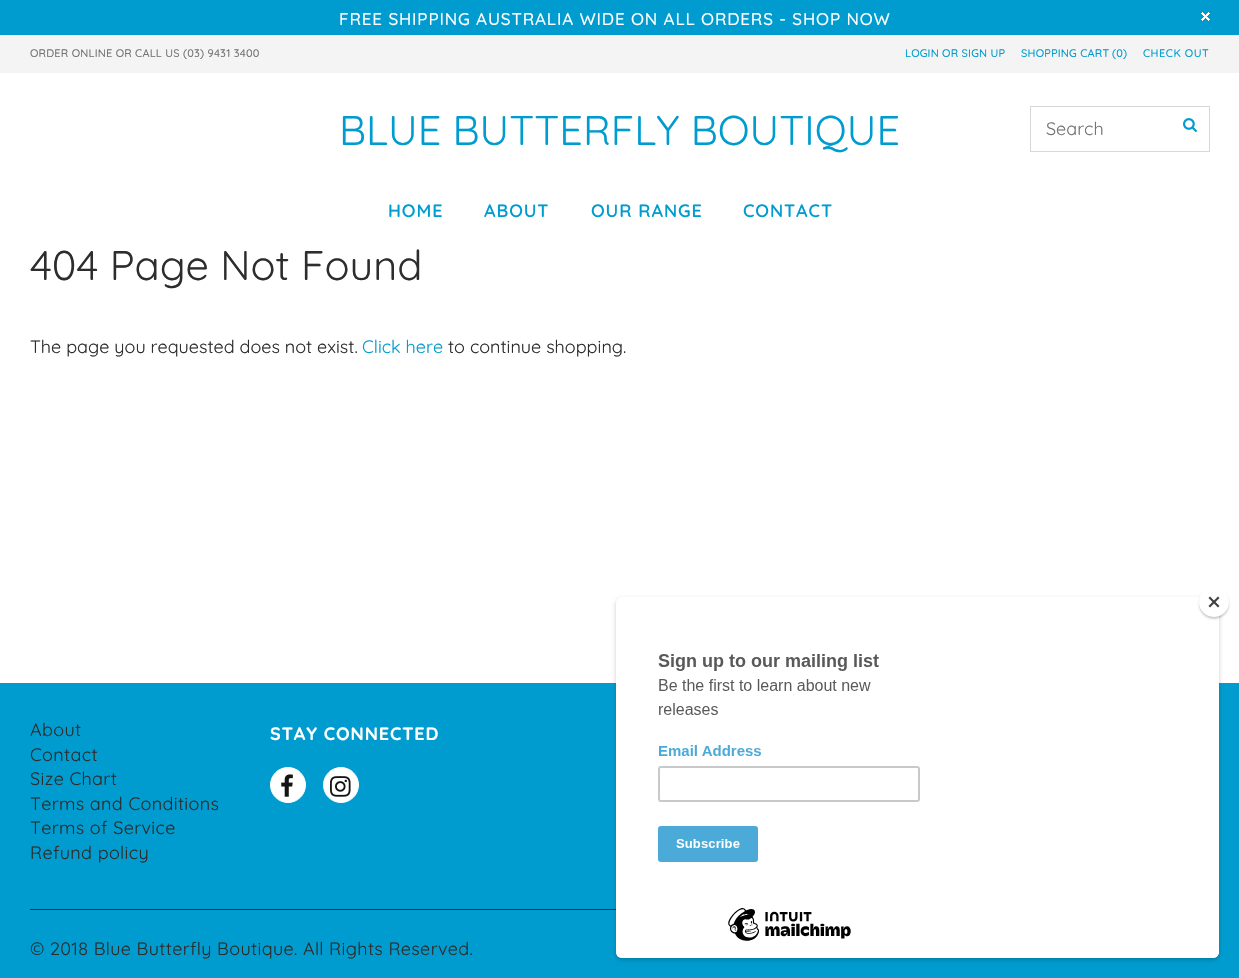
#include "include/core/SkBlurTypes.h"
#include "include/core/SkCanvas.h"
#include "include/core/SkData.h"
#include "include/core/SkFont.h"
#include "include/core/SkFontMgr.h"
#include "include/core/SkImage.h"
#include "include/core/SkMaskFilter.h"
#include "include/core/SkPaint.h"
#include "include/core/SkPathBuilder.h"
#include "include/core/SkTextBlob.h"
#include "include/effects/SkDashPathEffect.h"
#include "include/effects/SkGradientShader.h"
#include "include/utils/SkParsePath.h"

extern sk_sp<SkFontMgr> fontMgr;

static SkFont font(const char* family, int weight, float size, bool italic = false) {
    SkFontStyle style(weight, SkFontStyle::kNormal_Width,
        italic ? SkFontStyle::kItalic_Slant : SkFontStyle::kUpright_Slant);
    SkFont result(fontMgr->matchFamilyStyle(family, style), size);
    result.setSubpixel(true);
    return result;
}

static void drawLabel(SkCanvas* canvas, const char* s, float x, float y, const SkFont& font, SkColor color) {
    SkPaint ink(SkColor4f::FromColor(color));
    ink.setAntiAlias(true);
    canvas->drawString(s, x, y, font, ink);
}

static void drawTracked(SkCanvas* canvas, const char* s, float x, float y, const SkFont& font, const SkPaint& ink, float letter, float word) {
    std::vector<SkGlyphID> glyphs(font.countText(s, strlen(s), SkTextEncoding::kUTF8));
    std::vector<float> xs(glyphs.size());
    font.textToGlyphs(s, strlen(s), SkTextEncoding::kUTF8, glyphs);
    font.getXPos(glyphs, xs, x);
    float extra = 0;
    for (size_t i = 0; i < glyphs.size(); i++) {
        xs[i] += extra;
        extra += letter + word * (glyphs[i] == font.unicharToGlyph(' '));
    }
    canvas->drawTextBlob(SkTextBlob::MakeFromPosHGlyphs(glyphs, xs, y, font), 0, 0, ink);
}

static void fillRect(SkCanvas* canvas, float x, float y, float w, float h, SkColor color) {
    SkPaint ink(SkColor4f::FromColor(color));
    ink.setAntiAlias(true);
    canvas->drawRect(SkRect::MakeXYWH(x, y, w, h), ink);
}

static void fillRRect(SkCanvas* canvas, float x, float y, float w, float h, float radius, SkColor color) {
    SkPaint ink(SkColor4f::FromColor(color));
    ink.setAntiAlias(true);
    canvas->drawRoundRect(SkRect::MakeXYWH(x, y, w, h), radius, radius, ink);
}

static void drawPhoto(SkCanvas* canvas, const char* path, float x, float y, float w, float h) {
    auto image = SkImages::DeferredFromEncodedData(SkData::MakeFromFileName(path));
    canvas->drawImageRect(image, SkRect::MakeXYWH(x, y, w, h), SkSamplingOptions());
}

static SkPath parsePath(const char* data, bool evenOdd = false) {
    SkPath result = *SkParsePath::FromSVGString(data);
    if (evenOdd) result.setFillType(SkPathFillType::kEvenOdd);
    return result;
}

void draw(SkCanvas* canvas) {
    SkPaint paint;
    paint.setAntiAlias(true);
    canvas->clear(0xFFFFFFFF);
    fillRect(canvas, 0, 0, 1239, 35, 0xFF009CCF);
    SkFont font1 = font("Quicksand", 500, 17);
    paint.setColor(0xFFFFFFFF);
    drawTracked(canvas, "FREE SHIPPING AUSTRALIA WIDE ON ALL ORDERS - SHOP NOW", 339, 25, font1, paint, 0.85f, 0);
    drawPhoto(canvas, "assets/img1.png", 1201, 12, 9, 9);
    fillRect(canvas, 0, 35, 1239, 38, 0xFFF4F4F4);
    SkFont font2 = font("Quicksand", 500, 11);
    paint.setColor(0xFF747474);
    drawTracked(canvas, "ORDER ONLINE OR CALL US (03) 9431 3400", 30, 57, font2, paint, 0.2f, 0);
    paint.setColor(0xFF009CCF);
    drawTracked(canvas, "LOGIN OR SIGN UP", 905, 57, font2, paint, 0.2f, 0);
    drawTracked(canvas, "SHOPPING CART", 1021, 57, font2, paint, 0.2f, 0);
    drawTracked(canvas, "(0)", 1112, 57, font2, paint, 0.2f, 0);
    drawTracked(canvas, "CHECK OUT", 1143, 57, font2, paint, 0.5f, 0);
    SkFont font3 = font("Quicksand", 400, 41.5f);
    drawLabel(canvas, "BLUE BUTTERFLY BOUTIQUE", 339, 145, font3, 0xFF009CCF);
    paint.setStroke(true);
    paint.setStrokeWidth(1);
    paint.setColor(0xFFD7D7D7);
    canvas->drawRect(SkRect::MakeXYWH(1030.5f, 106.5f, 179, 45), paint);
    SkFont font4 = font("Quicksand", 400, 18);
    drawLabel(canvas, "Search", 1046, 135, font4, 0xFF747474);
    drawPhoto(canvas, "assets/img2.png", 1183, 118, 14, 14);
    SkFont font5 = font("Quicksand", 600, 18);
    paint.setStroke(false);
    paint.setColor(0xFF009CCF);
    drawTracked(canvas, "HOME", 388, 217, font5, paint, 0.9f, 0);
    drawTracked(canvas, "ABOUT", 484, 217, font5, paint, 0.9f, 0);
    drawTracked(canvas, "OUR RANGE", 591, 217, font5, paint, 0.9f, 0);
    drawTracked(canvas, "CONTACT", 743, 217, font5, paint, 0.9f, 0);
    drawLabel(canvas, "404 Page Not Found", 30, 280, font3, 0xFF2D2D2D);
    drawLabel(canvas, "The page you requested does not exist.", 30, 353, font4, 0xFF2D2D2D);
    drawLabel(canvas, "Click here", 362, 353, font4, 0xFF009CCF);
    drawLabel(canvas, "to continue shopping.", 448, 353, font4, 0xFF2D2D2D);
    fillRect(canvas, 0, 683, 1239, 295, 0xFF009CCF);
    paint.setColor(0xFF2D2D2D);
    drawTracked(canvas, "About", 30, 736, font4, paint, 0.35f, 0);
    drawTracked(canvas, "Contact", 30, 761, font4, paint, 0.35f, 0);
    drawTracked(canvas, "Size Chart", 30, 785, font4, paint, 0.35f, 0);
    drawTracked(canvas, "Terms and Conditions", 30, 810, font4, paint, 0.35f, 0);
    drawTracked(canvas, "Terms of Service", 30, 834, font4, paint, 0.35f, 0);
    drawTracked(canvas, "Refund policy", 30, 859, font4, paint, 0.35f, 0);
    SkFont font6 = font("Quicksand", 700, 18);
    paint.setColor(0xFFFFFFFF);
    drawTracked(canvas, "STAY CONNECTED", 270, 740, font6, paint, 0.9f, 0);
    canvas->drawCircle(288, 785, 17.5f, paint);
    paint.setStroke(true);
    canvas->drawCircle(288, 785, 17.5f, paint);
    drawPhoto(canvas, "assets/img3.png", 281, 774, 12, 23);
    paint.setStroke(false);
    canvas->drawCircle(341, 785, 17.5f, paint);
    paint.setStroke(true);
    canvas->drawCircle(341, 785, 17.5f, paint);
    drawPhoto(canvas, "assets/img4.png", 330, 776, 21, 21);
    fillRect(canvas, 30, 909, 586, 1, 0xFF282828);
    paint.setStroke(false);
    paint.setColor(0xFF2D2D2D);
    drawTracked(canvas, "© 2018 Blue Butterfly Boutique. All Rights Reserved.", 30, 955, font4, paint, 0.35f, 0);
    paint.setColor(0x33000000);
    paint.setMaskFilter(SkMaskFilter::MakeBlur(kNormal_SkBlurStyle, 2));
    canvas->drawRoundRect(SkRect::MakeXYWH(616, 599, 603, 361), 6, 6, paint);
    paint.setMaskFilter(nullptr);
    fillRRect(canvas, 616, 597, 603, 361, 6, 0xFFFFFFFF);
    paint.setMaskFilter(SkMaskFilter::MakeBlur(kNormal_SkBlurStyle, 1));
    canvas->drawRoundRect(SkRect::MakeXYWH(1199, 589, 30, 30), 15, 15, paint);
    paint.setMaskFilter(nullptr);
    paint.setColor(0xFFFFFFFF);
    canvas->drawCircle(1214, 602, 15, paint);
    paint.setColor(0xFF414141);
    canvas->drawPath(parsePath("M1218 596.5L1219.5 598L1210 607.5L1208.5 606Z"), paint);
    canvas->drawPath(parsePath("M1208.5 598L1210 596.5L1219.5 606L1218 607.5Z"), paint);
    drawPhoto(canvas, "assets/img5.png", 616, 654, 603, 304);
}
